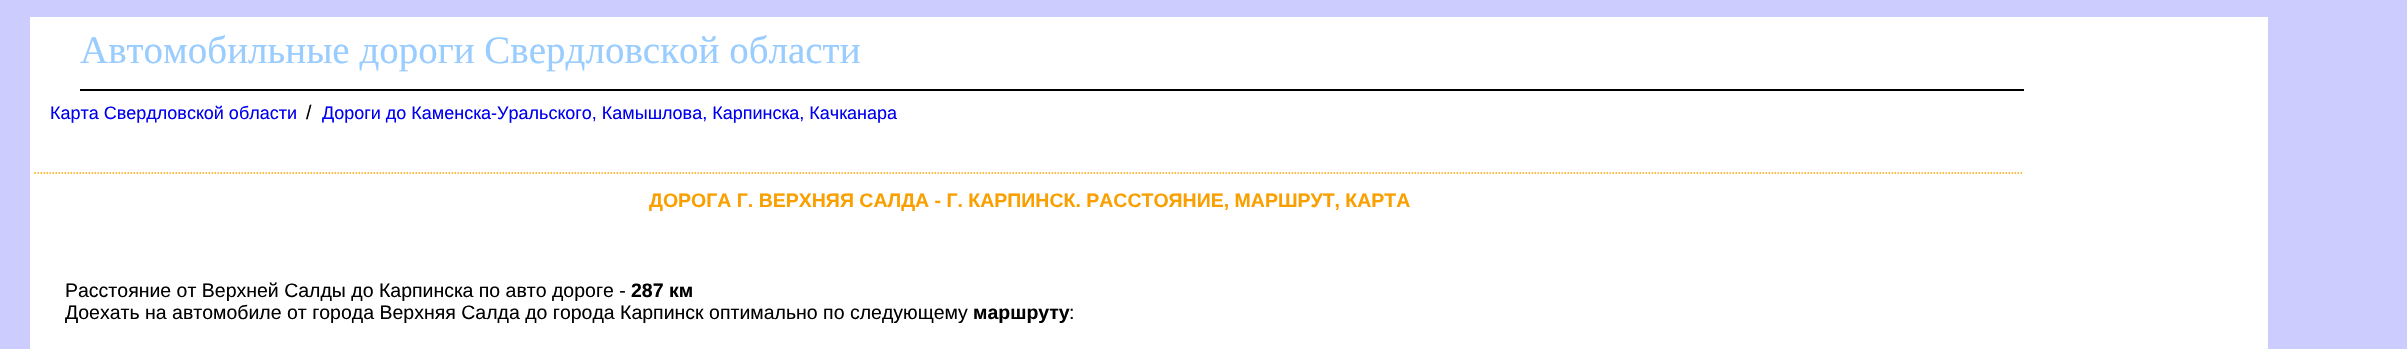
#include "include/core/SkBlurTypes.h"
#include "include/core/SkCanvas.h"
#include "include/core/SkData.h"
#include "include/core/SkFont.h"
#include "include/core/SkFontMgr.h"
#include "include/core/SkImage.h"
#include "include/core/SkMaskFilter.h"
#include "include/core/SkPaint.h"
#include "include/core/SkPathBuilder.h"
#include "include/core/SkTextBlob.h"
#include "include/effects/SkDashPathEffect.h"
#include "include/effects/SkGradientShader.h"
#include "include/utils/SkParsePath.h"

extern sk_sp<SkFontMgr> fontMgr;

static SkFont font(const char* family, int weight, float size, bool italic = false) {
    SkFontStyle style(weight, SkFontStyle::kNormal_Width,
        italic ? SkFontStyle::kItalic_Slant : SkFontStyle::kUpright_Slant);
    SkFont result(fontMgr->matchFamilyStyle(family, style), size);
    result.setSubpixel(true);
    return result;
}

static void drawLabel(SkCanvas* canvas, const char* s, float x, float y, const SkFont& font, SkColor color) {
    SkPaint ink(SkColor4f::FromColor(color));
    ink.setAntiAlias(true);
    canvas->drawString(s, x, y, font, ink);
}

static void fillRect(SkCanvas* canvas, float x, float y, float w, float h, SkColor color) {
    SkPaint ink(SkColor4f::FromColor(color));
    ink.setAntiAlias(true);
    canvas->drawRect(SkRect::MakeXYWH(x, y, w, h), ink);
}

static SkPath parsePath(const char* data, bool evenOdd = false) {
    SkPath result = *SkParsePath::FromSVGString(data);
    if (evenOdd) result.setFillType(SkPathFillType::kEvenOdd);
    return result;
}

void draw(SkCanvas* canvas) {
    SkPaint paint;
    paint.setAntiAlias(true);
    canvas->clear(0xFFCCCCFF);
    fillRect(canvas, 30, 17, 2238, 332, 0xFFFFFFFF);
    fillRect(canvas, 80, 89, 1944, 2, 0xFF000000);
    SkFont font1 = font("Liberation Serif", 400, 39);
    drawLabel(canvas, "Автомобильные дороги Свердловской области", 80, 63, font1, 0xFF99CCFF);
    SkFont font2 = font("Liberation Sans", 400, 18);
    drawLabel(canvas, "Карта Свердловской области", 50, 119, font2, 0xFF0000EE);
    SkFont font3 = font("Liberation Sans", 400, 19.5f);
    drawLabel(canvas, "/", 306, 119, font3, 0xFF000000);
    drawLabel(canvas, "Дороги до Каменска-Уральского, Камышлова, Карпинска, Качканара", 322, 119, font2, 0xFF0000EE);
    paint.setStroke(true);
    paint.setStrokeWidth(1.5f);
    paint.setColor(0xFFFFA500);
    paint.setPathEffect(SkDashPathEffect::Make({{1.5f, 1.5f}}, 0));
    canvas->drawPath(parsePath("M34.5 173H2023.5"), paint);
    paint.setPathEffect(nullptr);
    SkFont font4 = font("Liberation Sans", 700, 19.5f);
    drawLabel(canvas, "ДОРОГА Г. ВЕРХНЯЯ САЛДА - Г. КАРПИНСК. РАССТОЯНИЕ, МАРШРУТ, КАРТА", 649, 207, font4, 0xFFF9A000);
    drawLabel(canvas, "Расстояние от Верхней Салды до Карпинска по авто дороге -", 65, 297, font3, 0xFF000000);
    drawLabel(canvas, "287 км", 631, 297, font4, 0xFF000000);
    drawLabel(canvas, "Доехать на автомобиле от города Верхняя Салда до города Карпинск оптимально по следующему", 65, 319, font3, 0xFF000000);
    drawLabel(canvas, "маршруту", 973, 319, font4, 0xFF000000);
    drawLabel(canvas, ":", 1069, 319, font3, 0xFF000000);
}
